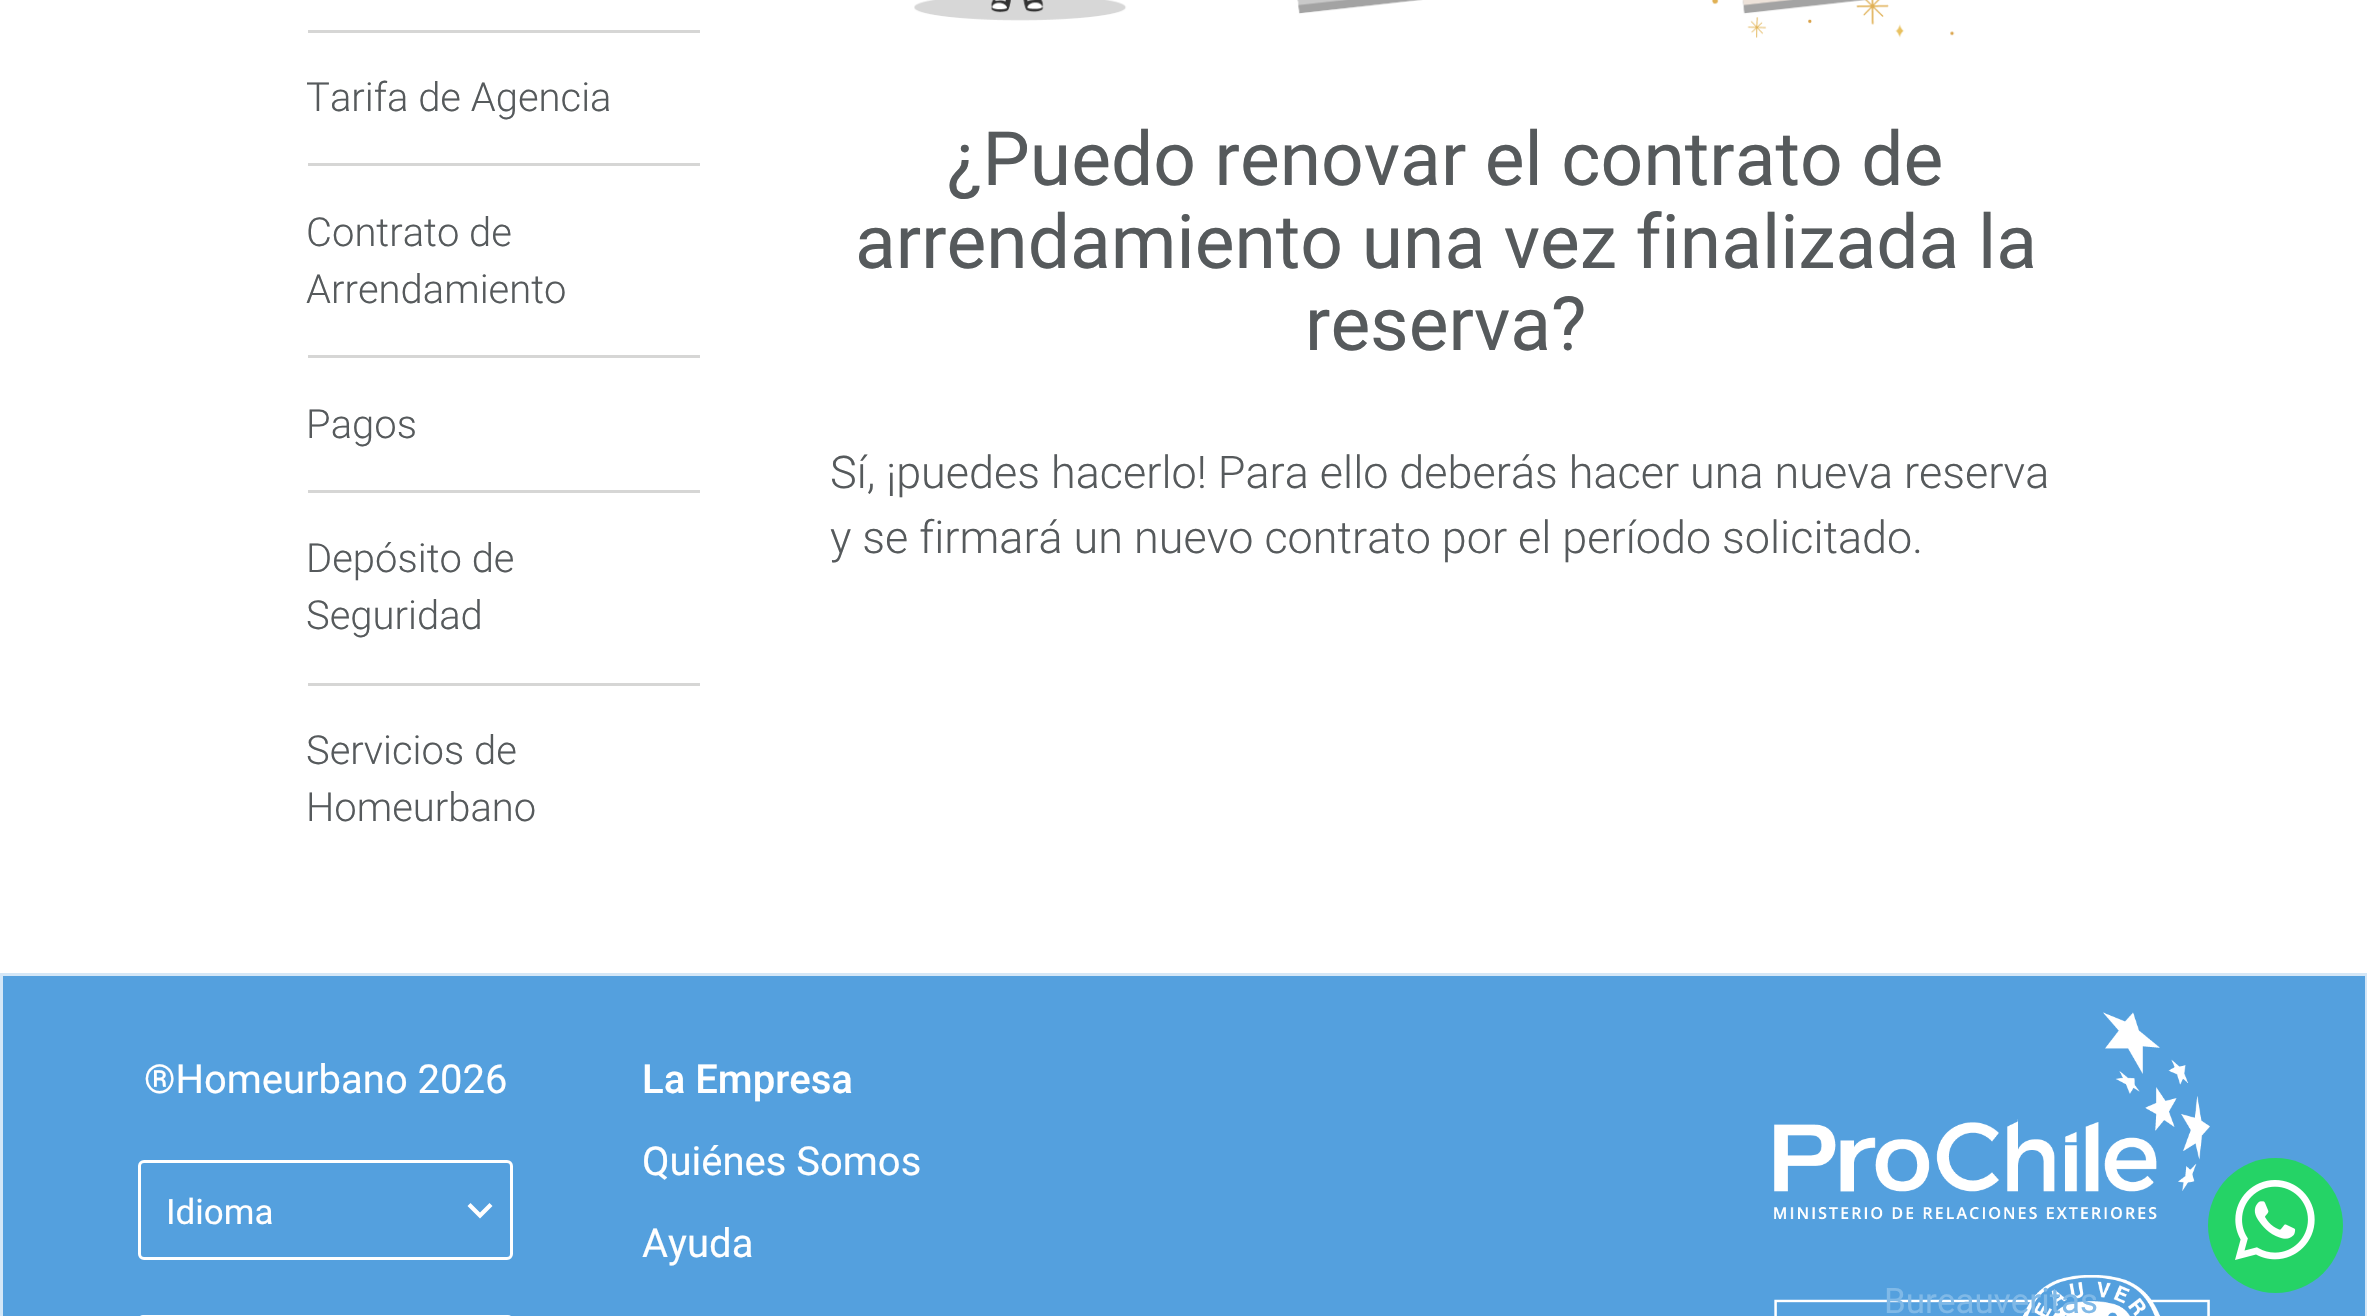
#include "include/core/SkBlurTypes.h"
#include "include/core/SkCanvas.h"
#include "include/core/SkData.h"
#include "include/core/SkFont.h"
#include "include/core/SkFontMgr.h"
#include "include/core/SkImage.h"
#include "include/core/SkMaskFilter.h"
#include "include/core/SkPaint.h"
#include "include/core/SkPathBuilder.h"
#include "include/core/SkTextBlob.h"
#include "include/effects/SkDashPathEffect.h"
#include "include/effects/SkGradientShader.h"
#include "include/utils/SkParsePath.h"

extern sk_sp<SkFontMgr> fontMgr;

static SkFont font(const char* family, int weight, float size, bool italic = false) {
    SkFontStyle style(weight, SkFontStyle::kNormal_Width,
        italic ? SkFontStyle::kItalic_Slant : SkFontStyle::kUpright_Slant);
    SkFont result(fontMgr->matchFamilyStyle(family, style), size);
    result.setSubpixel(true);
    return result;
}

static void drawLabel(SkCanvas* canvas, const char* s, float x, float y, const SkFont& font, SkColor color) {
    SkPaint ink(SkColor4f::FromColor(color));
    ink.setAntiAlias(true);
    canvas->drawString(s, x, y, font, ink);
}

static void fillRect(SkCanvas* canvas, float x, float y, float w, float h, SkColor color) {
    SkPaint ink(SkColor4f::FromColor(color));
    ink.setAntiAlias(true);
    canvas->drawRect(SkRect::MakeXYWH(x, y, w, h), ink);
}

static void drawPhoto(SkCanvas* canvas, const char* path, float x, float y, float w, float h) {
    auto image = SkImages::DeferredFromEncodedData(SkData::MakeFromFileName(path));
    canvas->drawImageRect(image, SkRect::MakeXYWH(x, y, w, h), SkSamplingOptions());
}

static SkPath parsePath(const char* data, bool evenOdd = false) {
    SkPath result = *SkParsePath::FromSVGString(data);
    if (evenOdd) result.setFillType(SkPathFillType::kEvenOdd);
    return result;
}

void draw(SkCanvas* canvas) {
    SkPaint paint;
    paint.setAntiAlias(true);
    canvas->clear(0xFFFFFFFF);
    fillRect(canvas, 308, 30, 392, 3, 0xFFD6D6D5);
    fillRect(canvas, 308, 163, 392, 3, 0xFFD6D6D5);
    SkFont font1 = font("Roboto", 300, 40);
    drawLabel(canvas, "Tarifa de Agencia", 306, 111, font1, 0xFF565A5C);
    fillRect(canvas, 308, 355, 392, 3, 0xFFD6D6D5);
    drawLabel(canvas, "Contrato de", 306, 246, font1, 0xFF565A5C);
    drawLabel(canvas, "Arrendamiento", 306, 303, font1, 0xFF565A5C);
    fillRect(canvas, 308, 490, 392, 3, 0xFFD6D6D5);
    drawLabel(canvas, "Pagos", 306, 438, font1, 0xFF565A5C);
    fillRect(canvas, 308, 683, 392, 3, 0xFFD6D6D5);
    drawLabel(canvas, "Depósito de", 306, 572, font1, 0xFF565A5C);
    drawLabel(canvas, "Seguridad", 306, 629, font1, 0xFF565A5C);
    drawLabel(canvas, "Servicios de", 306, 764, font1, 0xFF565A5C);
    drawLabel(canvas, "Homeurbano", 306, 821, font1, 0xFF565A5C);
    drawPhoto(canvas, "assets/img1.png", 914, 0, 1041, 38);
    SkFont font2 = font("Roboto", 400, 75);
    drawLabel(canvas, "¿Puedo renovar el contrato de", 947, 185, font2, 0xFF565A5C);
    drawLabel(canvas, "arrendamiento una vez finalizada la", 855, 268, font2, 0xFF565A5C);
    drawLabel(canvas, "reserva?", 1305, 350, font2, 0xFF565A5C);
    SkFont font3 = font("Roboto", 300, 45);
    drawLabel(canvas, "Sí, ¡puedes hacerlo! Para ello deberás hacer una nueva reserva", 830, 488, font3, 0xFF565A5C);
    drawLabel(canvas, "y se firmará un nuevo contrato por el período solicitado.", 830, 553, font3, 0xFF565A5C);
    paint.setColor(0xFF54A0DE);
    canvas->drawRect(SkRect::MakeXYWH(1.5f, 974.5f, 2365, 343), paint);
    paint.setStroke(true);
    paint.setStrokeWidth(3);
    paint.setColor(0xFFD4E7F7);
    canvas->drawRect(SkRect::MakeXYWH(1.5f, 974.5f, 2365, 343), paint);
    SkFont font4 = font("Roboto", 400, 40);
    drawLabel(canvas, "®Homeurbano 2026", 144, 1093, font4, 0xFFFFFFFF);
    paint.setColor(0xFFFFFFFF);
    canvas->drawRoundRect(SkRect::MakeXYWH(139.5f, 1161.5f, 372, 97), 4.5f, 4.5f, paint);
    SkFont font5 = font("Roboto", 400, 35);
    drawLabel(canvas, "Idioma", 166, 1224, font5, 0xFFFFFFFF);
    paint.setStroke(false);
    canvas->drawPath(parsePath("M470.5 1203L467.5 1206L480 1218.5L492.5 1206L489.5 1203L480 1212.5Z"), paint);
    paint.setStroke(true);
    canvas->drawRoundRect(SkRect::MakeXYWH(139.5f, 1316.5f, 372, 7), 4.5f, 4.5f, paint);
    SkFont font6 = font("Roboto", 500, 40);
    drawLabel(canvas, "La Empresa", 642, 1093, font6, 0xFFFFFFFF);
    drawLabel(canvas, "Quiénes Somos", 642, 1175, font4, 0xFFFFFFFF);
    drawLabel(canvas, "Ayuda", 642, 1257, font4, 0xFFFFFFFF);
    drawPhoto(canvas, "assets/img2.png", 1774, 1012, 436, 208);
    drawPhoto(canvas, "assets/img3.png", 1774, 1275, 436, 41);
    drawLabel(canvas, "Bureauveritas", 1884, 1313, font5, 0xFF80B9E7);
    paint.setStroke(false);
    paint.setColor(0xFF25D366);
    canvas->drawCircle(2275.5f, 1225.5f, 67.5f, paint);
    drawPhoto(canvas, "assets/img4.png", 2235, 1180, 80, 80);
}
